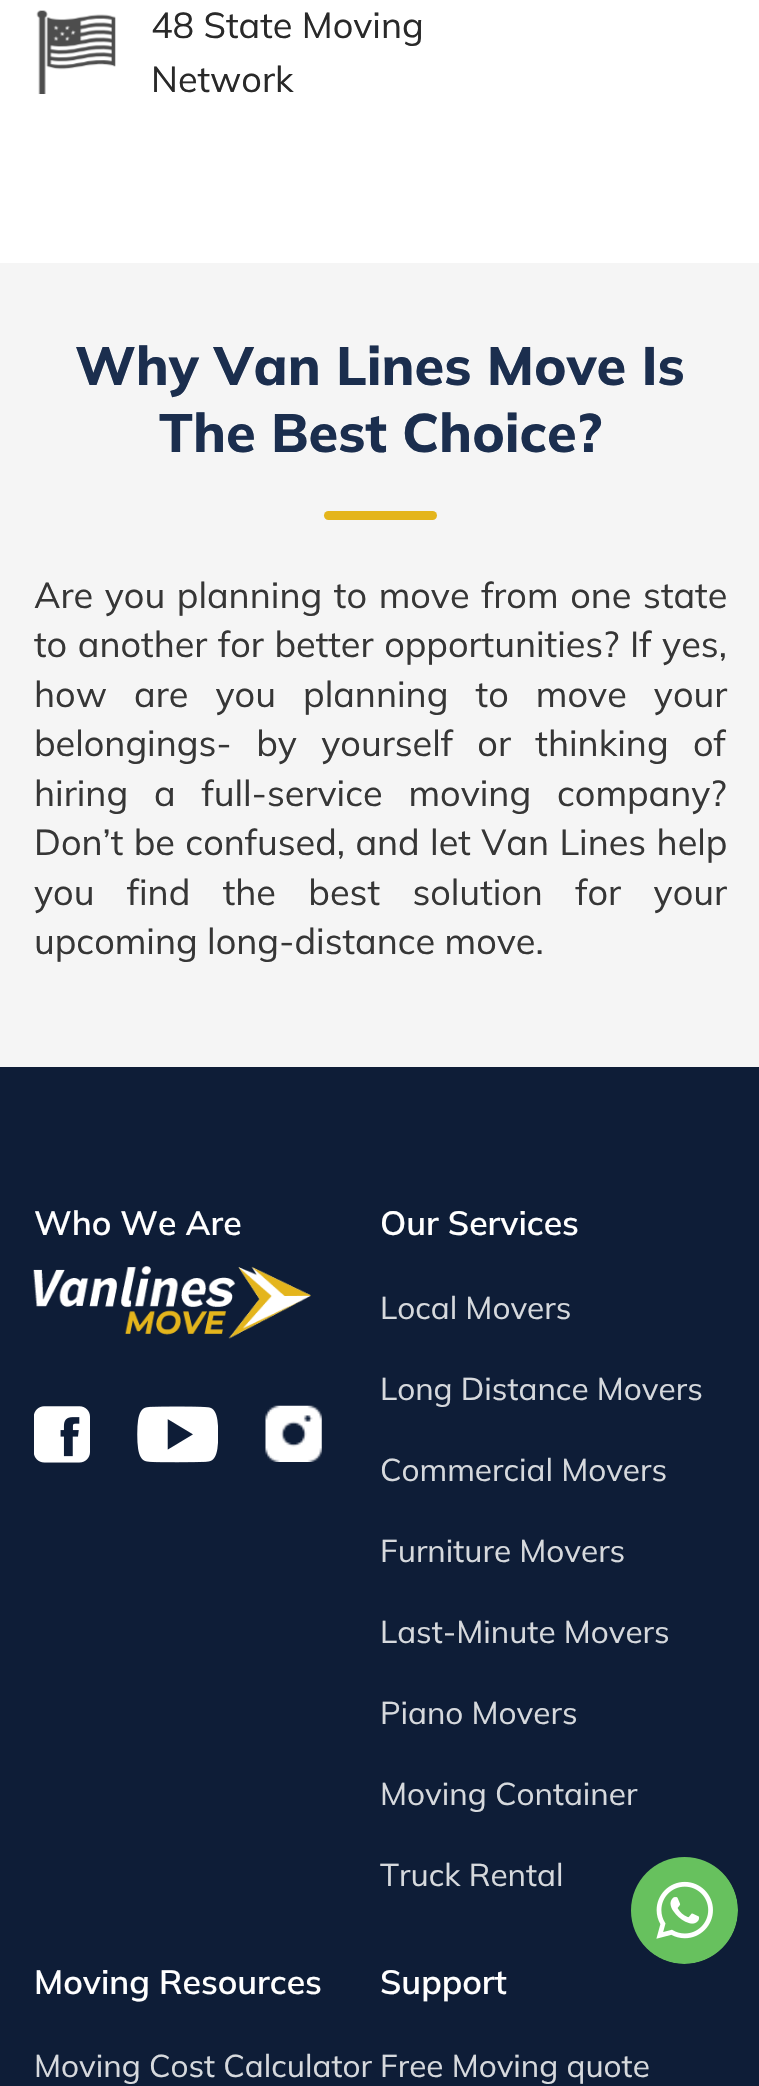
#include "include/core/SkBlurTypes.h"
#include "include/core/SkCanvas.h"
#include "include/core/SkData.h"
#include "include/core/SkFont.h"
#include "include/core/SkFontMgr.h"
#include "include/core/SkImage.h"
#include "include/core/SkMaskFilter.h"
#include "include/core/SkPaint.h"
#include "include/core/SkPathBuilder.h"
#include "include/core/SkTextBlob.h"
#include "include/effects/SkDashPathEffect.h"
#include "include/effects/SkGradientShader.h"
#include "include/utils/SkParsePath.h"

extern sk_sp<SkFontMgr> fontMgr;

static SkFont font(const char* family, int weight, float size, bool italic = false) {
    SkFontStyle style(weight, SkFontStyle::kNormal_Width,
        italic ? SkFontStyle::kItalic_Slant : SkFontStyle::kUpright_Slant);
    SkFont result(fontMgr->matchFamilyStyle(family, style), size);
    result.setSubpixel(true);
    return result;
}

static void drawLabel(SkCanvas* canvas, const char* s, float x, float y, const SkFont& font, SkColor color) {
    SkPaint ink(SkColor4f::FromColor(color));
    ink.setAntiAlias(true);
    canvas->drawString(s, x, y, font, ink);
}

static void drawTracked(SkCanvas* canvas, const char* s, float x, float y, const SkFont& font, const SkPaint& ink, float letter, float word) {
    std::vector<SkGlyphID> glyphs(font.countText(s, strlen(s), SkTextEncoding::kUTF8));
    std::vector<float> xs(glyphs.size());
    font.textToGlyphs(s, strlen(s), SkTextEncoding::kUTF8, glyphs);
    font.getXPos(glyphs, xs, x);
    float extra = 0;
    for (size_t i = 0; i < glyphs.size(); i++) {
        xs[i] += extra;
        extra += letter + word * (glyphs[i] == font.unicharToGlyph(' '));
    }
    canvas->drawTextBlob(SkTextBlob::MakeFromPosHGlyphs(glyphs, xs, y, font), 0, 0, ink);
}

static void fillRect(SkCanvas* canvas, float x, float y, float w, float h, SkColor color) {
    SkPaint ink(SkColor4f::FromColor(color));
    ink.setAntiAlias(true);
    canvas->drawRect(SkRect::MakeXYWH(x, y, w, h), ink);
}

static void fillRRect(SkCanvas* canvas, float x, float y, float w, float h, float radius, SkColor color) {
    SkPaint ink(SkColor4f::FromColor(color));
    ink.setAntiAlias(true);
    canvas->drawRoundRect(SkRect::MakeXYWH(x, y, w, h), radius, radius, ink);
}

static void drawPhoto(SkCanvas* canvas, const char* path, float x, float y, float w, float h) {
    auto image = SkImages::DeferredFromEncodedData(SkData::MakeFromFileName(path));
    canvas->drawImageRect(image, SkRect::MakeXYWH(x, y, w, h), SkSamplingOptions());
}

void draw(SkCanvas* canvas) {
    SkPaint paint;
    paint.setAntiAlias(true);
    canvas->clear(0xFFFFFFFF);
    drawPhoto(canvas, "assets/img1.png", 36, 10, 80, 84);
    SkFont font1 = font("Mulish", 400, 36);
    drawLabel(canvas, "48 State Moving", 151, 38, font1, 0xFF292929);
    drawLabel(canvas, "Network", 151, 92, font1, 0xFF292929);
    fillRect(canvas, 0, 263, 759, 804, 0xFFF5F5F5);
    SkFont font2 = font("Mulish", 800, 54);
    drawLabel(canvas, "Why Van Lines Move Is", 75, 385, font2, 0xFF1B2E4E);
    drawLabel(canvas, "The Best Choice?", 159, 452, font2, 0xFF1B2E4E);
    fillRRect(canvas, 324, 511, 113, 9, 4.5f, 0xFFE4B51C);
    paint.setColor(0xFF363636);
    drawTracked(canvas, "Are you planning to move from one state", 34, 608, font1, paint, 0, 2.25f);
    drawTracked(canvas, "to another for better opportunities? If yes,", 34, 657, font1, paint, 0, 1.25f);
    drawTracked(canvas, "how are you planning to move your", 34, 707, font1, paint, 0, 17.75f);
    drawTracked(canvas, "belongings- by yourself or thinking of", 34, 756, font1, paint, 0, 15);
    drawTracked(canvas, "hiring a full-service moving company?", 34, 806, font1, paint, 0, 16.5f);
    drawTracked(canvas, "Don’t be confused, and let Van Lines help", 34, 855, font1, paint, 0, 1);
    drawTracked(canvas, "you find the best solution for your", 34, 905, font1, paint, 0, 23);
    drawLabel(canvas, "upcoming long-distance move.", 34, 954, font1, 0xFF363636);
    fillRect(canvas, 0, 1067, 759, 1019, 0xFF0E1D37);
    SkFont font3 = font("Mulish", 600, 33.75f);
    drawLabel(canvas, "Who We Are", 34, 1235, font3, 0xFFFFFFFF);
    drawPhoto(canvas, "assets/img2.png", 33, 1266, 278, 73);
    drawPhoto(canvas, "assets/img3.png", 34, 1406, 56, 57);
    drawPhoto(canvas, "assets/img4.png", 137, 1406, 81, 57);
    drawPhoto(canvas, "assets/img5.png", 265, 1405, 57, 57);
    drawLabel(canvas, "Our Services", 380, 1235, font3, 0xFFFFFFFF);
    SkFont font4 = font("Mulish", 400, 31.5f);
    drawLabel(canvas, "Local Movers", 380, 1319, font4, 0xFFD6D9DD);
    drawLabel(canvas, "Long Distance Movers", 380, 1400, font4, 0xFFD6D9DD);
    drawLabel(canvas, "Commercial Movers", 380, 1481, font4, 0xFFD6D9DD);
    drawLabel(canvas, "Furniture Movers", 380, 1562, font4, 0xFFD6D9DD);
    drawLabel(canvas, "Last-Minute Movers", 380, 1643, font4, 0xFFD6D9DD);
    drawLabel(canvas, "Piano Movers", 380, 1724, font4, 0xFFD6D9DD);
    drawLabel(canvas, "Moving Container", 380, 1805, font4, 0xFFD6D9DD);
    drawLabel(canvas, "Truck Rental", 380, 1886, font4, 0xFFD6D9DD);
    drawLabel(canvas, "Moving Resources", 34, 1994, font3, 0xFFFFFFFF);
    drawLabel(canvas, "Moving Cost Calculator", 34, 2077, font4, 0xFFD6D9DD);
    drawLabel(canvas, "Support", 380, 1994, font3, 0xFFFFFFFF);
    drawLabel(canvas, "Free Moving quote", 380, 2077, font4, 0xFFD6D9DD);
    drawPhoto(canvas, "assets/img6.png", 631, 1857, 107, 107);
}
